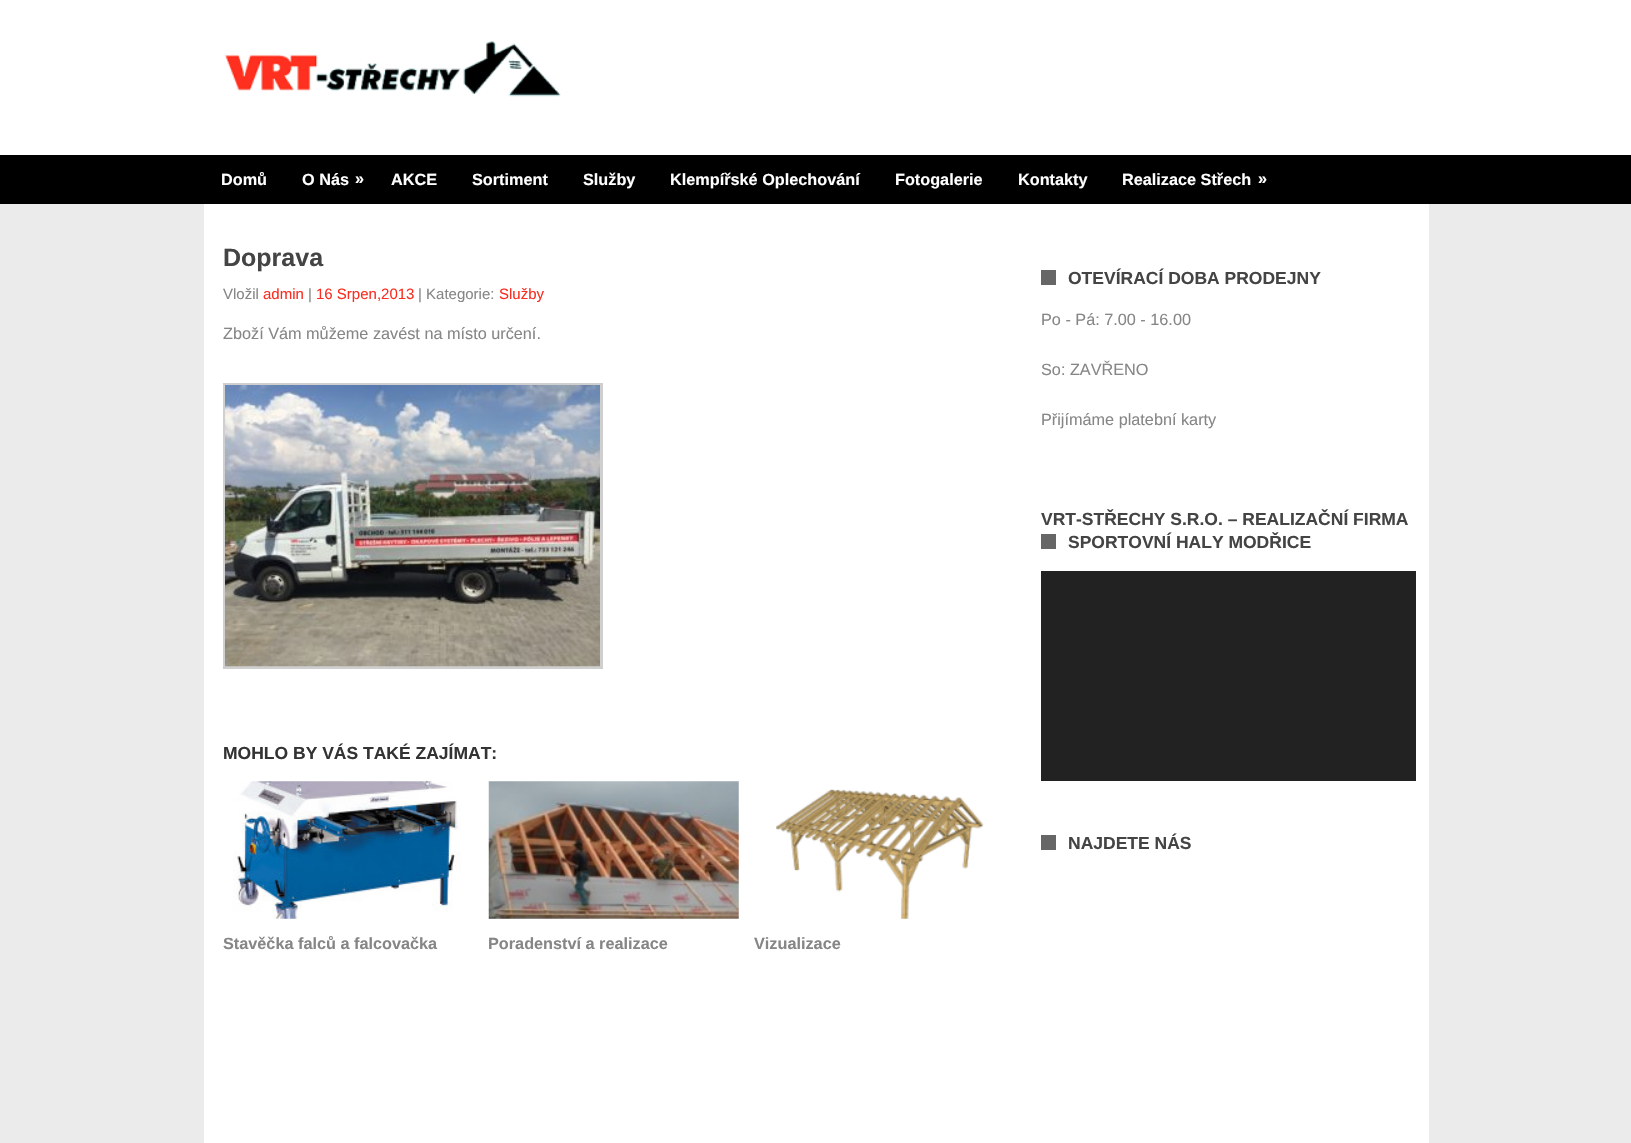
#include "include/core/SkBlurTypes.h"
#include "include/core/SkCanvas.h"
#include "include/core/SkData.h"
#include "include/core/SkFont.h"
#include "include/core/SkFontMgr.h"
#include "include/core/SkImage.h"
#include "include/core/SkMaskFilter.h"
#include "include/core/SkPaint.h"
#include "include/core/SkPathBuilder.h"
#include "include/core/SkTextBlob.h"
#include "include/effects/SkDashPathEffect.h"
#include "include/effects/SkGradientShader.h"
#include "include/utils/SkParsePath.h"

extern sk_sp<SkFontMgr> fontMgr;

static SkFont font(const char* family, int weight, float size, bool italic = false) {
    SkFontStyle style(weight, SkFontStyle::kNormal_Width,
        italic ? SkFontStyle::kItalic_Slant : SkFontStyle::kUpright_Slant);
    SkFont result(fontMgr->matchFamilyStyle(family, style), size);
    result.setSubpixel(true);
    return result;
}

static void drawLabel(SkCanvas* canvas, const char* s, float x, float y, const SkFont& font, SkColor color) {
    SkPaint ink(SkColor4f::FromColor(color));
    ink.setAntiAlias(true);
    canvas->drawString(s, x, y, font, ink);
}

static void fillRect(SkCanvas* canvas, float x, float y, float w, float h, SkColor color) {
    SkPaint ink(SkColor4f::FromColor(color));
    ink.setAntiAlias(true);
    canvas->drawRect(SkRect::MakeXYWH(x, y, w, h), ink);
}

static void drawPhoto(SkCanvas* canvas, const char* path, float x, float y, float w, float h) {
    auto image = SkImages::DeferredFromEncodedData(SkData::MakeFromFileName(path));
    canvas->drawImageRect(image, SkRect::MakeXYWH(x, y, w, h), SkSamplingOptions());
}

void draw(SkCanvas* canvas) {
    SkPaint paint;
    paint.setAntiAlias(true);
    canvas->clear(0xFFEBEBEB);
    fillRect(canvas, 0, 0, 1631, 155, 0xFFFFFFFF);
    drawPhoto(canvas, "assets/img1.png", 225, 41, 336, 56);
    fillRect(canvas, 0, 155, 1631, 49, 0xFF000000);
    SkFont font1 = font("Liberation Sans", 700, 16.25f);
    drawLabel(canvas, "Domů", 221, 185, font1, 0xFFFFFFFF);
    drawLabel(canvas, "O Nás", 302, 185, font1, 0xFFFFFFFF);
    drawLabel(canvas, "»", 355, 184, font1, 0xFFFFFFFF);
    drawLabel(canvas, "AKCE", 391, 185, font1, 0xFFFFFFFF);
    drawLabel(canvas, "Sortiment", 472, 185, font1, 0xFFFFFFFF);
    drawLabel(canvas, "Služby", 583, 185, font1, 0xFFFFFFFF);
    drawLabel(canvas, "Klempířské Oplechování", 670, 185, font1, 0xFFFFFFFF);
    drawLabel(canvas, "Fotogalerie", 895, 185, font1, 0xFFFFFFFF);
    drawLabel(canvas, "Kontakty", 1018, 185, font1, 0xFFFFFFFF);
    drawLabel(canvas, "Realizace Střech", 1122, 185, font1, 0xFFFFFFFF);
    drawLabel(canvas, "»", 1258, 184, font1, 0xFFFFFFFF);
    fillRect(canvas, 204, 204, 1225, 939, 0xFFFFFFFF);
    SkFont font2 = font("Liberation Sans", 700, 25);
    drawLabel(canvas, "Doprava", 223, 266, font2, 0xFF444444);
    SkFont font3 = font("Liberation Sans", 400, 15);
    drawLabel(canvas, "Vložil", 223, 299, font3, 0xFF868686);
    drawLabel(canvas, "admin", 263, 299, font3, 0xFFFA2D20);
    drawLabel(canvas, "|", 308, 299, font3, 0xFF868686);
    drawLabel(canvas, "16 Srpen,2013", 316, 299, font3, 0xFFFA2D20);
    drawLabel(canvas, "| Kategorie:", 418, 299, font3, 0xFF868686);
    drawLabel(canvas, "Služby", 499, 299, font3, 0xFFFA2D20);
    SkFont font4 = font("Liberation Sans", 400, 16.25f);
    drawLabel(canvas, "Zboží Vám můžeme zavést na místo určení.", 223, 339, font4, 0xFF868686);
    paint.setStroke(true);
    paint.setStrokeWidth(3);
    paint.setColor(0xFFCFCFCF);
    canvas->drawRect(SkRect::MakeXYWH(224.5f, 384.5f, 377, 283), paint);
    drawPhoto(canvas, "assets/img2.png", 225, 385, 375, 282);
    SkFont font5 = font("Liberation Sans", 700, 17.5f);
    drawLabel(canvas, "MOHLO BY VÁS TAKÉ ZAJÍMAT:", 223, 759, font5, 0xFF333333);
    drawPhoto(canvas, "assets/img3.png", 233, 781, 228, 138);
    drawLabel(canvas, "Stavěčka falců a falcovačka", 223, 949, font1, 0xFF868686);
    drawPhoto(canvas, "assets/img4.png", 488, 781, 251, 138);
    drawLabel(canvas, "Poradenství a realizace", 488, 949, font1, 0xFF868686);
    drawPhoto(canvas, "assets/img5.png", 776, 789, 208, 130);
    drawLabel(canvas, "Vizualizace", 754, 949, font1, 0xFF868686);
    fillRect(canvas, 1041, 270, 15, 15, 0xFF666666);
    drawLabel(canvas, "OTEVÍRACÍ DOBA PRODEJNY", 1068, 284, font5, 0xFF444444);
    drawLabel(canvas, "Po - Pá: 7.00 - 16.00", 1041, 325, font4, 0xFF868686);
    drawLabel(canvas, "So: ZAVŘENO", 1041, 375, font4, 0xFF868686);
    drawLabel(canvas, "Přijímáme platební karty", 1041, 425, font4, 0xFF868686);
    drawLabel(canvas, "VRT-STŘECHY S.R.O. – REALIZAČNÍ FIRMA", 1041, 525, font5, 0xFF444444);
    fillRect(canvas, 1041, 534, 15, 15, 0xFF666666);
    drawLabel(canvas, "SPORTOVNÍ HALY MODŘICE", 1068, 548, font5, 0xFF444444);
    fillRect(canvas, 1041, 571, 375, 210, 0xFF222222);
    fillRect(canvas, 1041, 835, 15, 15, 0xFF666666);
    drawLabel(canvas, "NAJDETE NÁS", 1068, 849, font5, 0xFF444444);
}
